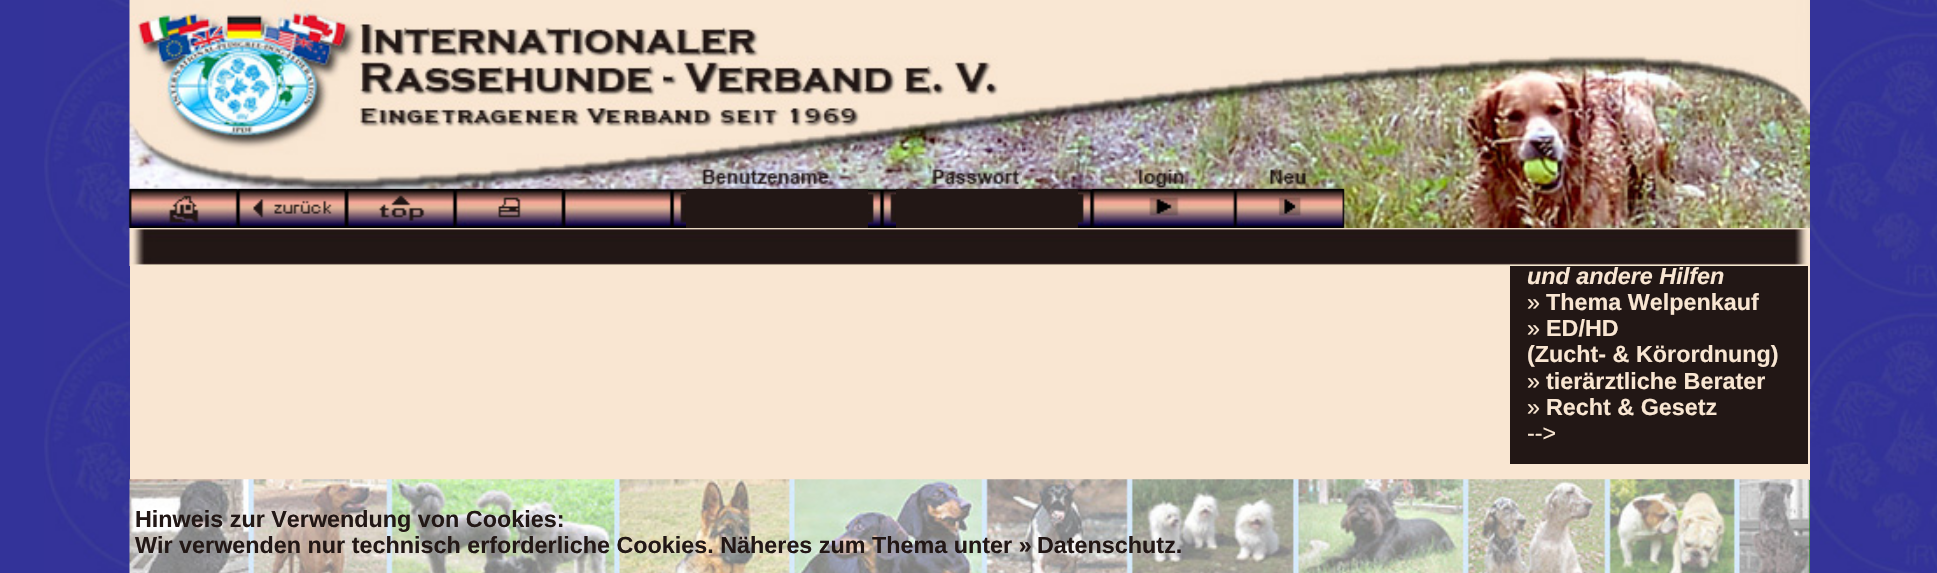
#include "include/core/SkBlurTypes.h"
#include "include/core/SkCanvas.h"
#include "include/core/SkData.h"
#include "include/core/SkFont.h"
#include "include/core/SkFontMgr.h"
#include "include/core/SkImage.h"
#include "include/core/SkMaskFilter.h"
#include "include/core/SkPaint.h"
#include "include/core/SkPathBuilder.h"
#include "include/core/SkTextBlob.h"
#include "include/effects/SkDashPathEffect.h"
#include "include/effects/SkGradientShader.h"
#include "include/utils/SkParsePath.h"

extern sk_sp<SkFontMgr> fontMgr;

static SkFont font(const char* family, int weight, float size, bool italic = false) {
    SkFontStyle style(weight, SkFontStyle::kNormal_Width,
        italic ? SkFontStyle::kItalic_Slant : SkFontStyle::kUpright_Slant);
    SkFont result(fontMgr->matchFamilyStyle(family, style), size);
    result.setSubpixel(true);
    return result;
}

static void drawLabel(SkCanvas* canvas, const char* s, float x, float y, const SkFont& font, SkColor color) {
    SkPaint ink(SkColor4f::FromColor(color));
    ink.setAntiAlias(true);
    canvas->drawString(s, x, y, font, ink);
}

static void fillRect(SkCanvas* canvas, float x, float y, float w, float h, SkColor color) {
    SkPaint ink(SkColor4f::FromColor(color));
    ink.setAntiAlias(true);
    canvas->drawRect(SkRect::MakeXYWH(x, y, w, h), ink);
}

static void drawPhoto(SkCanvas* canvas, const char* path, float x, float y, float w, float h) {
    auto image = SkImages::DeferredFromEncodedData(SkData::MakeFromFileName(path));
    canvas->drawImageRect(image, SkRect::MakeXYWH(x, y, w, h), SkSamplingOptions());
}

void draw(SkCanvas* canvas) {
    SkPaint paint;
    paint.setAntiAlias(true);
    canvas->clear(0xFF333399);
    drawPhoto(canvas, "assets/img1.png", 44, 0, 1893, 573);
    fillRect(canvas, 130, 266, 1680, 214, 0xFFF9E6D2);
    drawPhoto(canvas, "assets/img2.png", 129, 0, 1681, 228);
    drawPhoto(canvas, "assets/img3.png", 128, 189, 111, 39);
    drawPhoto(canvas, "assets/img4.png", 238, 189, 109, 36);
    drawPhoto(canvas, "assets/img5.png", 346, 189, 110, 36);
    drawPhoto(canvas, "assets/img6.png", 455, 189, 109, 39);
    fillRect(canvas, 686, 189, 182, 39, 0xFF221715);
    fillRect(canvas, 896, 189, 182, 39, 0xFF221715);
    drawPhoto(canvas, "assets/img7.png", 1091, 189, 145, 39);
    drawPhoto(canvas, "assets/img8.png", 1235, 189, 109, 39);
    drawPhoto(canvas, "assets/img9.png", 129, 228, 1681, 38);
    fillRect(canvas, 1510, 266, 298, 198, 0xFF221715);
    SkFont font1 = font("Liberation Sans", 700, 23.35f, true);
    drawLabel(canvas, "und andere Hilfen", 1527, 284, font1, 0xFFF9E6D2);
    SkFont font2 = font("Liberation Sans", 400, 23.35f);
    drawLabel(canvas, "»", 1527, 310, font2, 0xFFF9E6D2);
    SkFont font3 = font("Liberation Sans", 700, 23.35f);
    drawLabel(canvas, "Thema Welpenkauf", 1546, 310, font3, 0xFFF9E6D2);
    drawLabel(canvas, "»", 1527, 336, font2, 0xFFF9E6D2);
    drawLabel(canvas, "ED/HD", 1546, 336, font3, 0xFFF9E6D2);
    drawLabel(canvas, "(Zucht- & Körordnung)", 1527, 362, font3, 0xFFF9E6D2);
    drawLabel(canvas, "»", 1527, 389, font2, 0xFFF9E6D2);
    drawLabel(canvas, "tierärztliche Berater", 1546, 389, font3, 0xFFF9E6D2);
    drawLabel(canvas, "»", 1527, 415, font2, 0xFFF9E6D2);
    drawLabel(canvas, "Recht & Gesetz", 1546, 415, font3, 0xFFF9E6D2);
    drawLabel(canvas, "-->", 1527, 441, font2, 0xFFF9E6D2);
    fillRect(canvas, 1809, 480, 1, 93, 0xFF008000);
    drawPhoto(canvas, "assets/img10.png", 129, 479, 1681, 94);
    drawLabel(canvas, "Hinweis zur Verwendung von Cookies:", 135, 527, font3, 0xFF221715);
    drawLabel(canvas, "Wir verwenden nur technisch erforderliche Cookies. Näheres zum Thema unter »", 135, 553, font3, 0xFF221715);
    drawLabel(canvas, "Datenschutz.", 1037, 553, font3, 0xFF221715);
}
